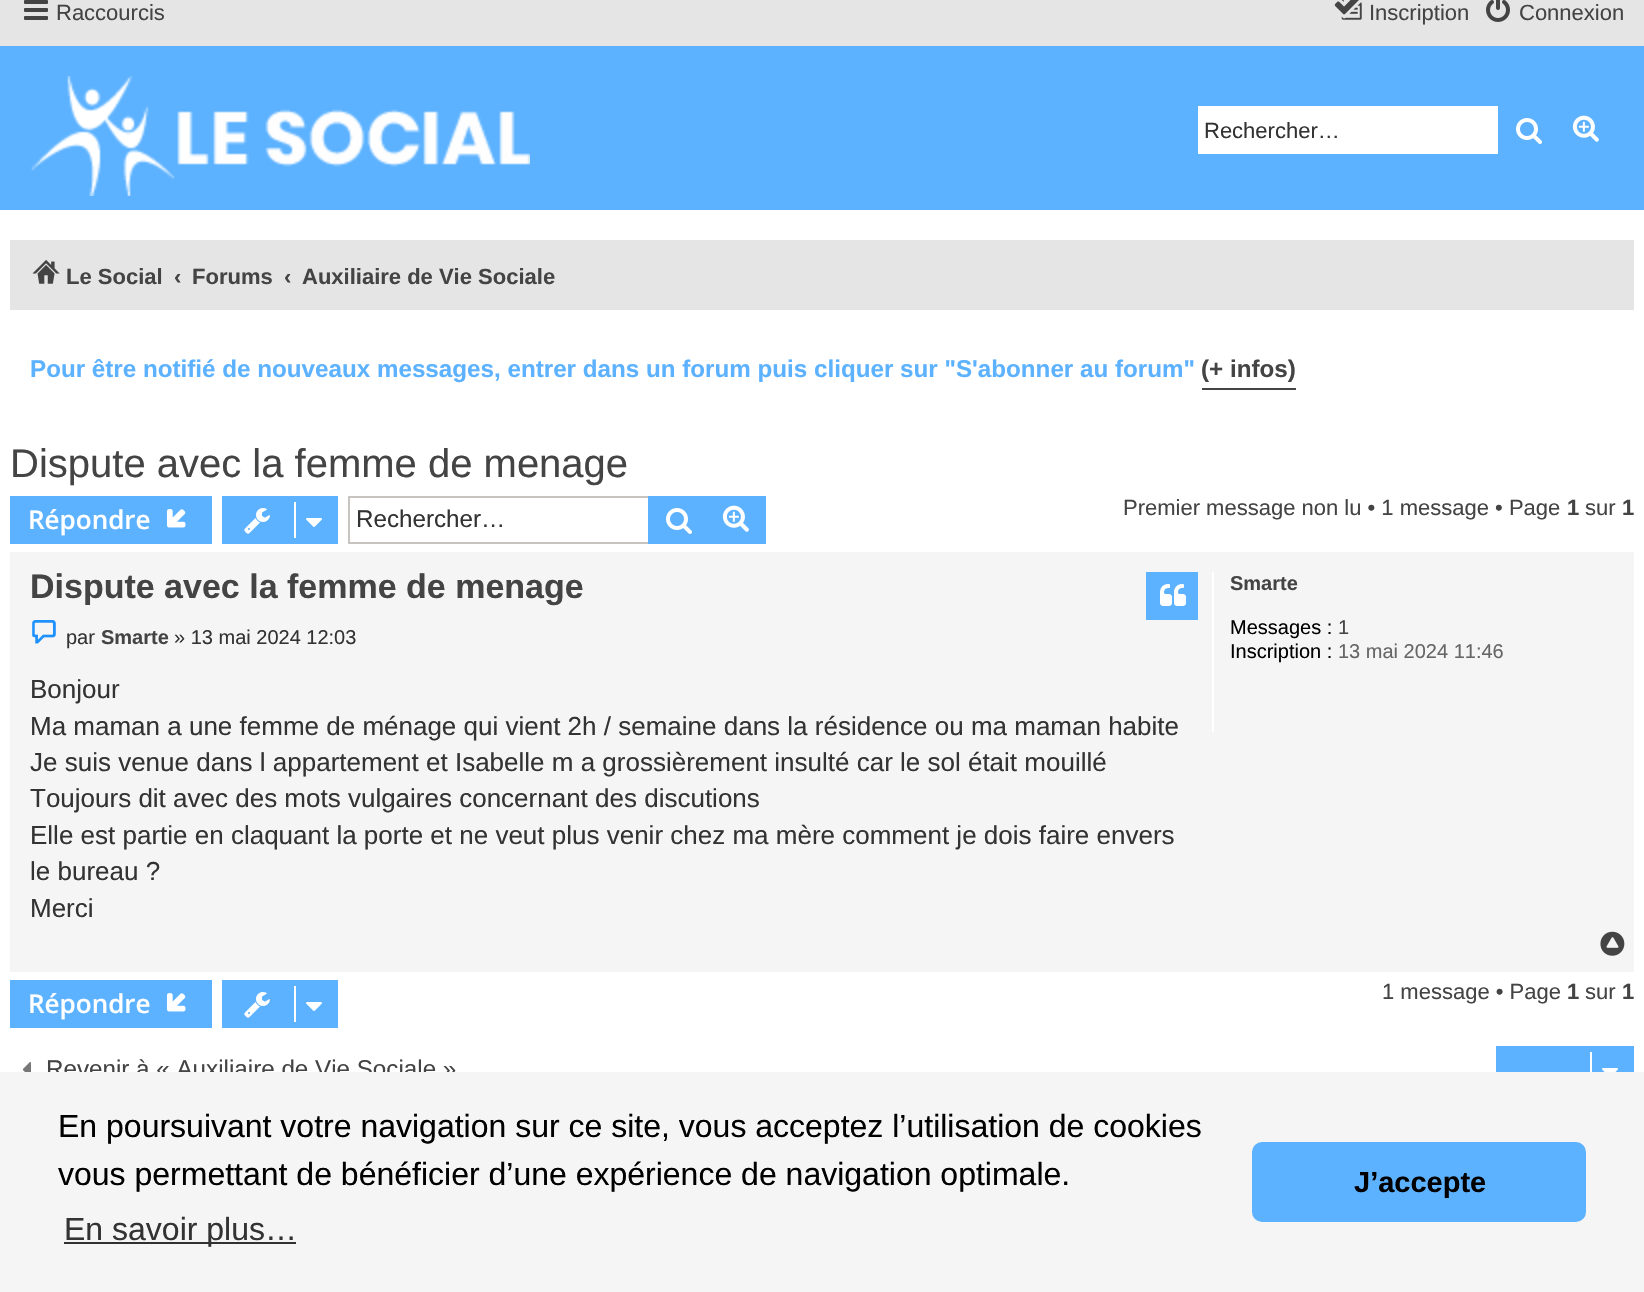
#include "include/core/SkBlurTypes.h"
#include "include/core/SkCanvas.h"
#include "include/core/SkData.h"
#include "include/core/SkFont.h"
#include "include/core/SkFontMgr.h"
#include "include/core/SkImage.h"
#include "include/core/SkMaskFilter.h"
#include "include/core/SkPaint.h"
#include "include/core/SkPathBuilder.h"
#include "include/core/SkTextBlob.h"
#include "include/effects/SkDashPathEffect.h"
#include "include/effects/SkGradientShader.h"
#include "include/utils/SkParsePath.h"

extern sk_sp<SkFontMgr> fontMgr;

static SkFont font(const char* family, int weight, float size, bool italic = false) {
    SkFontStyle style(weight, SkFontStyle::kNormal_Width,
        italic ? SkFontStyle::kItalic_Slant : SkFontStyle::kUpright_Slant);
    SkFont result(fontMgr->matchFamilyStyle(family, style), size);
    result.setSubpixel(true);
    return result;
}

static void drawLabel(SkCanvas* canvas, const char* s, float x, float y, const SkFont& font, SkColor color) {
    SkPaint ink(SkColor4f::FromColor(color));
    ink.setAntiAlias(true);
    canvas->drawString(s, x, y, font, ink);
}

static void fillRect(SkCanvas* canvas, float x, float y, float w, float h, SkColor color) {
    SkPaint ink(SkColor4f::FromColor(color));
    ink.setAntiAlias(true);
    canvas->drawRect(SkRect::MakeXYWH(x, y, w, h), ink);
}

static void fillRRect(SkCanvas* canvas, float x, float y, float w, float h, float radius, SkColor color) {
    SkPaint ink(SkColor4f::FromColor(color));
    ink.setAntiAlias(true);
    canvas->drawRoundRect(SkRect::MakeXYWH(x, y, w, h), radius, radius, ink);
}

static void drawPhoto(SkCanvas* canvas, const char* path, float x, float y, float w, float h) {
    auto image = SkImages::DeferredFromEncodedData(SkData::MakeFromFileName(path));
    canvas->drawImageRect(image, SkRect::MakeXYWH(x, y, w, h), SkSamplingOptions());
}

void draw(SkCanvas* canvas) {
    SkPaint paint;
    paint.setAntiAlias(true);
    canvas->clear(0xFFFFFFFF);
    fillRect(canvas, 0, 0, 1644, 46, 0xFFE5E5E5);
    drawPhoto(canvas, "assets/img1.png", 24, 0, 24, 20);
    SkFont font1 = font("Liberation Sans", 400, 22);
    drawLabel(canvas, "Raccourcis", 56, 20, font1, 0xFF444444);
    drawPhoto(canvas, "assets/img2.png", 1334, 0, 28, 20);
    drawLabel(canvas, "Inscription", 1369, 20, font1, 0xFF444444);
    drawPhoto(canvas, "assets/img3.png", 1486, 0, 24, 22);
    drawLabel(canvas, "Connexion", 1519, 20, font1, 0xFF444444);
    fillRect(canvas, 0, 46, 1644, 164, 0xFF5DB2FF);
    drawPhoto(canvas, "assets/img4.png", 31, 76, 499, 120);
    fillRect(canvas, 1198, 106, 300, 48, 0xFFFFFFFF);
    drawLabel(canvas, "Rechercher…", 1204, 138, font1, 0xFF333333);
    drawPhoto(canvas, "assets/img5.png", 1516, 118, 26, 26);
    drawPhoto(canvas, "assets/img6.png", 1572, 115, 27, 27);
    fillRect(canvas, 10, 240, 1624, 70, 0xFFE5E5E5);
    drawPhoto(canvas, "assets/img7.png", 32, 260, 28, 24);
    SkFont font2 = font("Liberation Sans", 700, 22);
    drawLabel(canvas, "Le Social", 66, 284, font2, 0xFF444444);
    drawLabel(canvas, "‹", 174, 284, font2, 0xFF444444);
    drawLabel(canvas, "Forums", 192, 284, font2, 0xFF444444);
    drawLabel(canvas, "‹", 284, 284, font2, 0xFF444444);
    drawLabel(canvas, "Auxiliaire de Vie Sociale", 302, 284, font2, 0xFF444444);
    SkFont font3 = font("Liberation Sans", 700, 24.2f);
    drawLabel(canvas, "Pour être notifié de nouveaux messages, entrer dans un forum puis cliquer sur \"S'abonner au forum\"", 30, 377, font3, 0xFF5DB2FF);
    fillRect(canvas, 1202, 388, 94, 2, 0xFF444444);
    drawLabel(canvas, "(+ infos)", 1201, 377, font3, 0xFF444444);
    SkFont font4 = font("Liberation Sans", 400, 40);
    drawLabel(canvas, "Dispute avec la femme de menage", 10, 477, font4, 0xFF444444);
    fillRect(canvas, 10, 496, 202, 48, 0xFF5DB2FF);
    SkFont font5 = font("Open Sans", 600, 26);
    drawLabel(canvas, "Répondre", 28, 529, font5, 0xFFFFFFFF);
    drawPhoto(canvas, "assets/img8.png", 167, 509, 19, 19);
    fillRect(canvas, 222, 496, 116, 48, 0xFF5DB2FF);
    drawPhoto(canvas, "assets/img9.png", 244, 508, 26, 26);
    fillRect(canvas, 294, 502, 2, 36, 0xFFFFFFFF);
    drawPhoto(canvas, "assets/img10.png", 306, 518, 16, 9);
    fillRect(canvas, 348, 496, 300, 2, 0xFFC7C3BF);
    fillRect(canvas, 348, 542, 300, 2, 0xFFC7C3BF);
    fillRect(canvas, 348, 496, 2, 48, 0xFFC7C3BF);
    SkFont font6 = font("Liberation Sans", 400, 24.2f);
    drawLabel(canvas, "Rechercher…", 356, 527, font6, 0xFF333333);
    fillRect(canvas, 648, 496, 60, 48, 0xFF5DB2FF);
    drawPhoto(canvas, "assets/img5.png", 666, 508, 26, 26);
    fillRect(canvas, 708, 498, 56, 44, 0xFF5DB2FF);
    fillRect(canvas, 708, 496, 58, 2, 0xFF5DB2FF);
    fillRect(canvas, 764, 496, 2, 48, 0xFF5DB2FF);
    fillRect(canvas, 708, 542, 58, 2, 0xFF5DB2FF);
    drawPhoto(canvas, "assets/img6.png", 722, 505, 27, 27);
    drawLabel(canvas, "Premier message non lu • 1 message • Page", 1123, 515, font1, 0xFF444444);
    drawLabel(canvas, "1", 1567, 515, font2, 0xFF444444);
    drawLabel(canvas, "sur", 1585, 515, font1, 0xFF444444);
    drawLabel(canvas, "1", 1622, 515, font2, 0xFF444444);
    fillRect(canvas, 10, 552, 1624, 420, 0xFFF5F5F5);
    SkFont font7 = font("Liberation Sans", 700, 34);
    drawLabel(canvas, "Dispute avec la femme de menage", 30, 598, font7, 0xFF444444);
    fillRect(canvas, 1146, 572, 52, 48, 0xFF5DB2FF);
    drawPhoto(canvas, "assets/img11.png", 1160, 584, 26, 22);
    drawPhoto(canvas, "assets/img12.png", 32, 620, 24, 24);
    SkFont font8 = font("Liberation Sans", 400, 20);
    drawLabel(canvas, "par", 66, 644, font8, 0xFF333333);
    SkFont font9 = font("Liberation Sans", 700, 20);
    drawLabel(canvas, "Smarte", 101, 644, font9, 0xFF444444);
    drawLabel(canvas, "» 13 mai 2024 12:03", 174, 644, font8, 0xFF333333);
    SkFont font10 = font("Liberation Sans", 400, 26);
    drawLabel(canvas, "Bonjour", 30, 698, font10, 0xFF333333);
    drawLabel(canvas, "Ma maman a une femme de ménage qui vient 2h / semaine dans la résidence ou ma maman habite", 30, 735, font10, 0xFF333333);
    drawLabel(canvas, "Je suis venue dans l appartement et Isabelle m a grossièrement insulté car le sol était mouillé", 30, 771, font10, 0xFF333333);
    drawLabel(canvas, "Toujours dit avec des mots vulgaires concernant des discutions", 30, 807, font10, 0xFF333333);
    drawLabel(canvas, "Elle est partie en claquant la porte et ne veut plus venir chez ma mère comment je dois faire envers", 30, 844, font10, 0xFF333333);
    drawLabel(canvas, "le bureau ?", 30, 880, font10, 0xFF333333);
    drawLabel(canvas, "Merci", 30, 917, font10, 0xFF333333);
    fillRect(canvas, 1212, 572, 2, 160, 0xFFFFFFFF);
    drawLabel(canvas, "Smarte", 1230, 590, font9, 0xFF444444);
    drawLabel(canvas, "Messages :", 1230, 634, font8, 0xFF000000);
    drawLabel(canvas, "1", 1338, 634, font8, 0xFF444444);
    drawLabel(canvas, "Inscription :", 1230, 658, font8, 0xFF000000);
    drawLabel(canvas, "13 mai 2024 11:46", 1338, 658, font8, 0xFF666666);
    drawPhoto(canvas, "assets/img13.png", 1600, 931, 25, 25);
    fillRect(canvas, 10, 980, 202, 48, 0xFF5DB2FF);
    drawLabel(canvas, "Répondre", 28, 1013, font5, 0xFFFFFFFF);
    drawPhoto(canvas, "assets/img8.png", 167, 993, 19, 19);
    fillRect(canvas, 222, 980, 116, 48, 0xFF5DB2FF);
    drawPhoto(canvas, "assets/img9.png", 244, 992, 26, 26);
    fillRect(canvas, 294, 986, 2, 36, 0xFFFFFFFF);
    drawPhoto(canvas, "assets/img10.png", 306, 1002, 16, 9);
    drawLabel(canvas, "1 message • Page", 1382, 999, font1, 0xFF444444);
    drawLabel(canvas, "1", 1567, 999, font2, 0xFF444444);
    drawLabel(canvas, "sur", 1585, 999, font1, 0xFF444444);
    drawLabel(canvas, "1", 1622, 999, font2, 0xFF444444);
    drawPhoto(canvas, "assets/img14.png", 22, 1062, 9, 10);
    drawLabel(canvas, "Revenir à « Auxiliaire de Vie Sociale »", 46, 1077, font6, 0xFF444444);
    fillRect(canvas, 1496, 1046, 138, 26, 0xFF5DB2FF);
    fillRect(canvas, 1590, 1052, 2, 20, 0xFFFFFFFF);
    drawPhoto(canvas, "assets/img15.png", 1602, 1068, 16, 4);
    fillRect(canvas, 0, 1072, 1644, 220, 0xFFF5F5F5);
    SkFont font11 = font("Liberation Sans", 400, 32);
    drawLabel(canvas, "En poursuivant votre navigation sur ce site, vous acceptez l’utilisation de cookies", 58, 1137, font11, 0xFF000000);
    drawLabel(canvas, "vous permettant de bénéficier d’une expérience de navigation optimale.", 58, 1185, font11, 0xFF000000);
    fillRect(canvas, 64, 1242, 232, 2, 0xFF313131);
    drawLabel(canvas, "En savoir plus…", 64, 1240, font11, 0xFF333333);
    fillRRect(canvas, 1252, 1142, 334, 80, 10, 0xFF5DB2FF);
    SkFont font12 = font("Liberation Sans", 700, 29);
    drawLabel(canvas, "J’accepte", 1354, 1192, font12, 0xFF000000);
}
